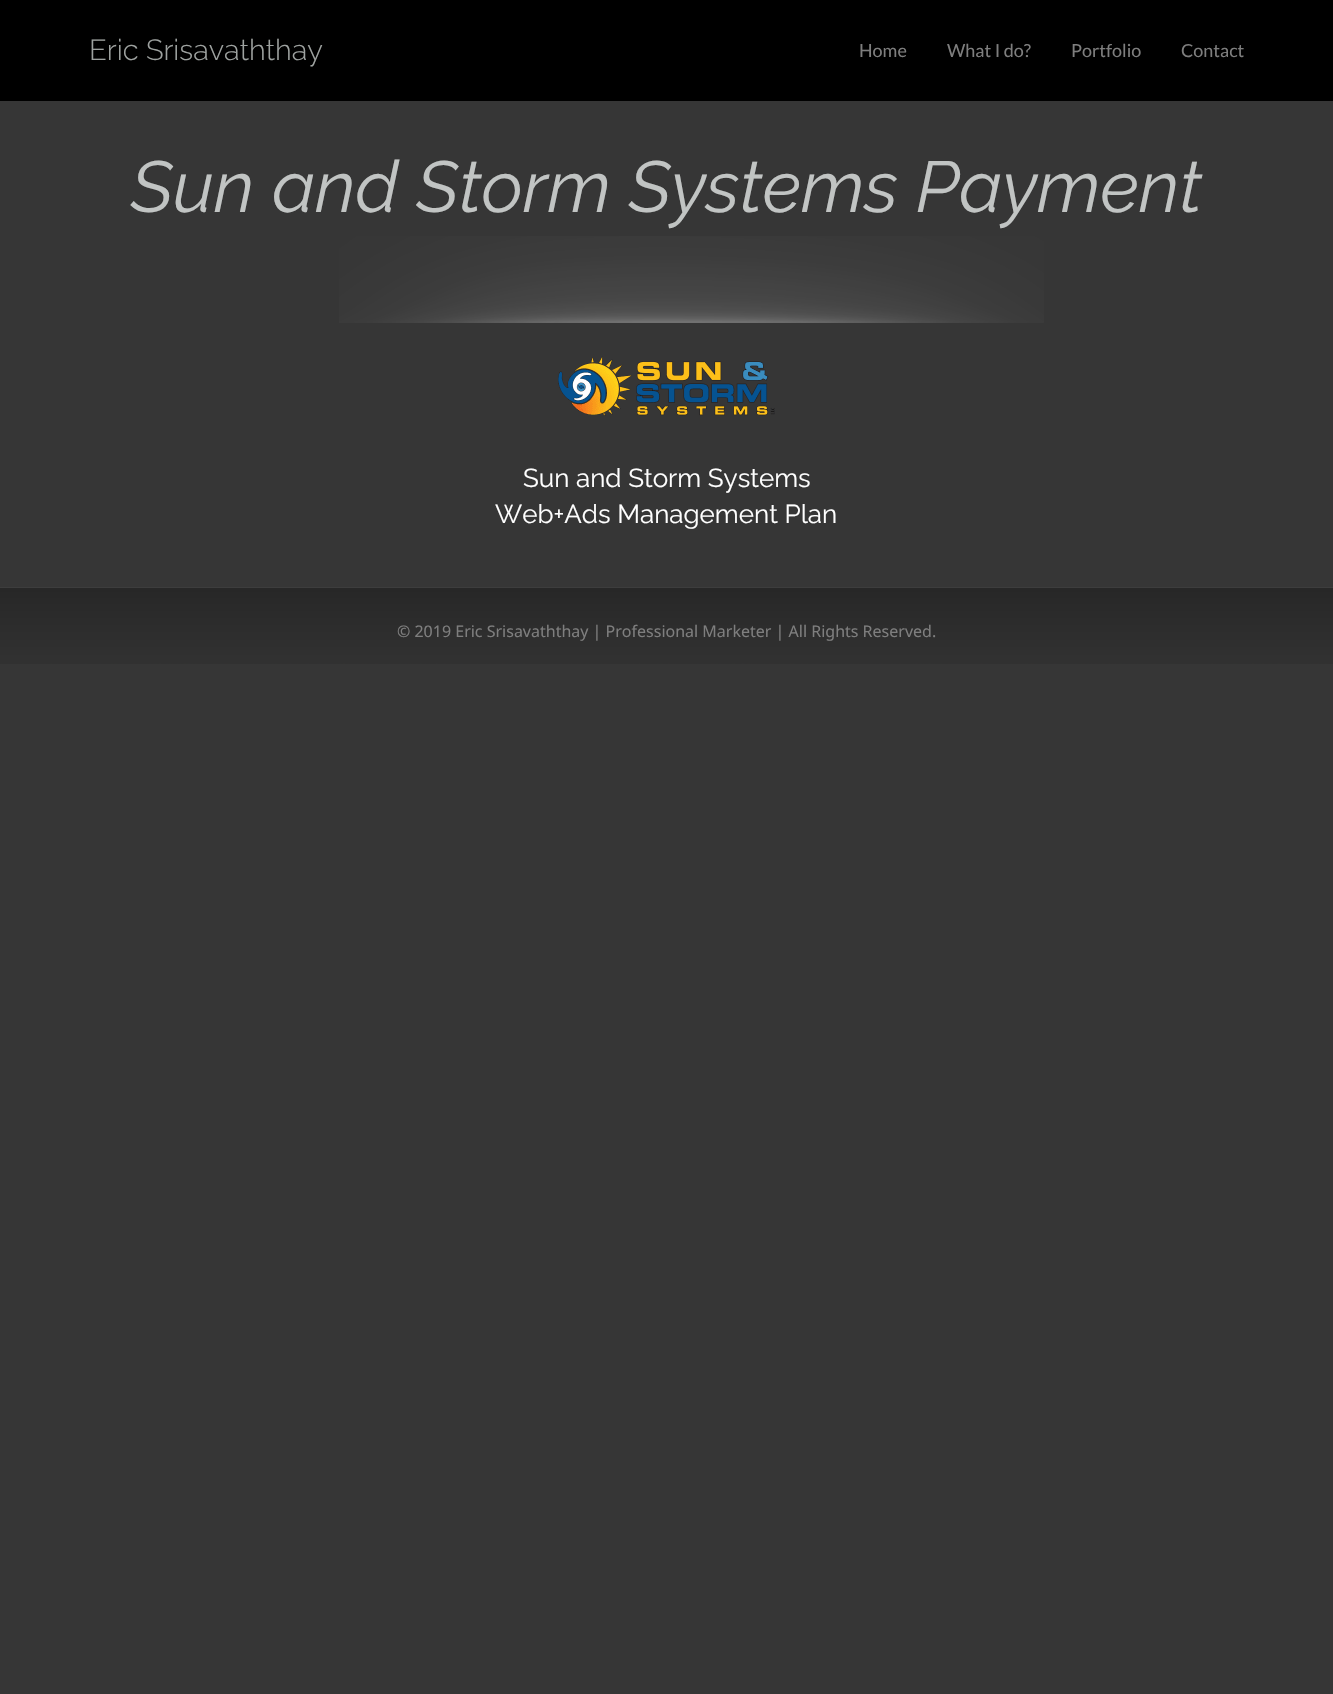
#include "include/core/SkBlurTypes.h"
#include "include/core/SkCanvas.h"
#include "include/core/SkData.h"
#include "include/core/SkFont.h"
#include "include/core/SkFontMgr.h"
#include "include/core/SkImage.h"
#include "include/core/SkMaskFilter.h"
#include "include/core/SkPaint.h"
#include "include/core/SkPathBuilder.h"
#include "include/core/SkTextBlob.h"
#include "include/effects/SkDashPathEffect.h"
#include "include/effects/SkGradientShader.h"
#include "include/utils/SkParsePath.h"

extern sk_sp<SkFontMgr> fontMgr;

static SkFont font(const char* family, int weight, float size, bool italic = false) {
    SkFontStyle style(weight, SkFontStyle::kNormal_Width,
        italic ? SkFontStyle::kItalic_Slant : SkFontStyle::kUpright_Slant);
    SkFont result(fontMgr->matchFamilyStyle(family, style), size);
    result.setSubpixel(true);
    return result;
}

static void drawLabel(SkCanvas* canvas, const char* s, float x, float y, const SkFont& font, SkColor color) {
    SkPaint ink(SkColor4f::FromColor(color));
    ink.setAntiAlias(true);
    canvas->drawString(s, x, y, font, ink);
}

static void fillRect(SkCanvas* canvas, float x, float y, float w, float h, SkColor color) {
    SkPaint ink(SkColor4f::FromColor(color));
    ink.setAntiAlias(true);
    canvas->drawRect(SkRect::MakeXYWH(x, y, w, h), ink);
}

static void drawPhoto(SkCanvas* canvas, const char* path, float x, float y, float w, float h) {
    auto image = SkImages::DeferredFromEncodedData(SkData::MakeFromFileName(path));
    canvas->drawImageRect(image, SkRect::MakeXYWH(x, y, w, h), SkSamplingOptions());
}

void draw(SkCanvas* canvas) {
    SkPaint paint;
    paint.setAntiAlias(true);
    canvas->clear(0xFF363636);
    fillRect(canvas, 0, 0, 1333, 101, 0xFF000000);
    SkFont font1 = font("Raleway", 300, 29);
    drawLabel(canvas, "Eric Srisavaththay", 89, 60, font1, 0xFF9EA2A0);
    SkFont font2 = font("Lato", 400, 18);
    drawLabel(canvas, "Home", 859, 57, font2, 0xFF7E7E7E);
    drawLabel(canvas, "What I do?", 947, 57, font2, 0xFF7E7E7E);
    drawLabel(canvas, "Portfolio", 1071, 57, font2, 0xFF7E7E7E);
    drawLabel(canvas, "Contact", 1181, 57, font2, 0xFF7E7E7E);
    drawPhoto(canvas, "assets/img1.png", 339, 236, 705, 87);
    SkFont font3 = font("Raleway", 400, 72, true);
    drawLabel(canvas, "Sun and Storm Systems Payment", 131, 212, font3, 0xFFC1C4C3);
    drawPhoto(canvas, "assets/img2.png", 558, 356, 217, 60);
    SkFont font4 = font("Raleway", 400, 26);
    drawLabel(canvas, "Sun and Storm Systems", 523, 487, font4, 0xFFFFFFFF);
    drawLabel(canvas, "Web+Ads Management Plan", 495, 523, font4, 0xFFFFFFFF);
    drawPhoto(canvas, "assets/img3.png", 0, 588, 1333, 76);
    fillRect(canvas, 0, 587, 1333, 1, 0xFF3D3D3D);
    SkFont font5 = font("Noto Sans", 400, 16);
    drawLabel(canvas, "© 2019 Eric Srisavaththay | Professional Marketer | All Rights Reserved.", 397, 637, font5, 0xFF7E7E7E);
}
